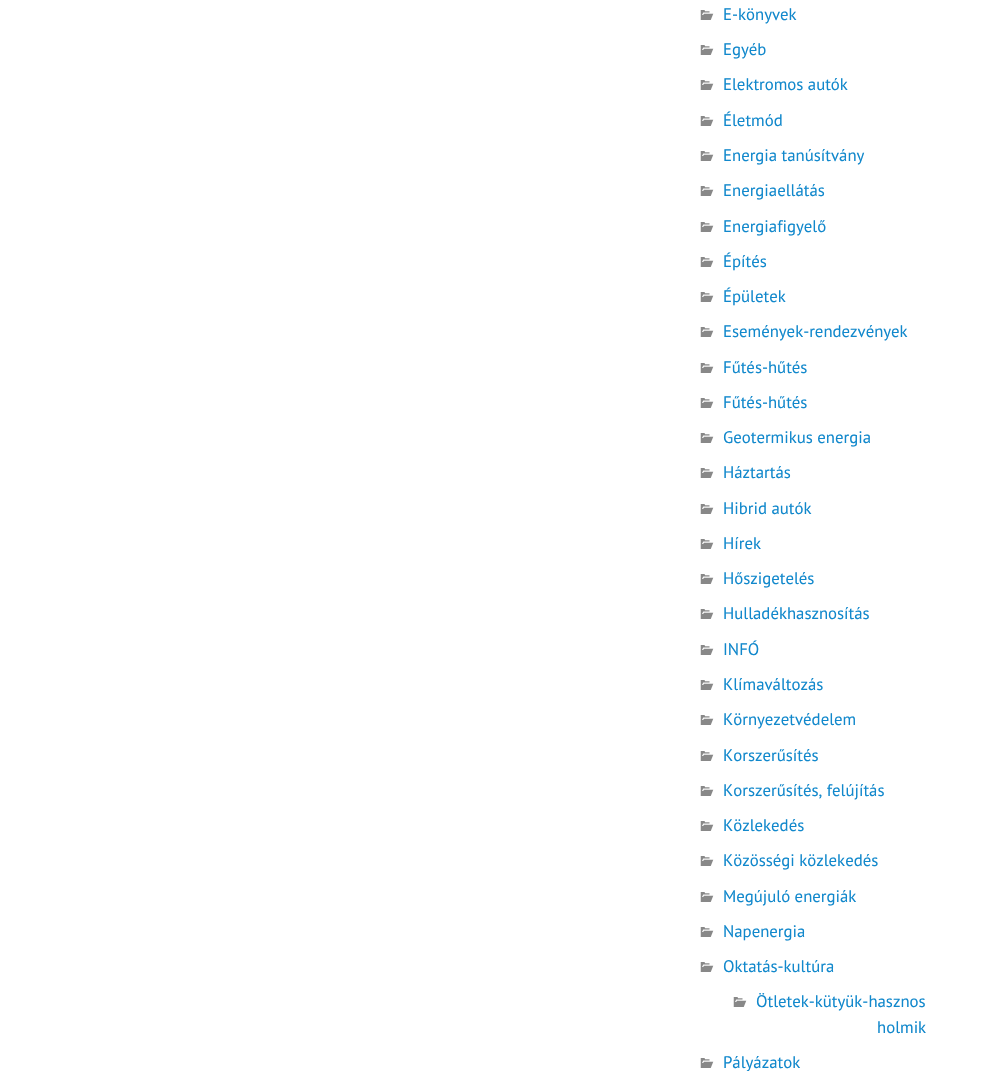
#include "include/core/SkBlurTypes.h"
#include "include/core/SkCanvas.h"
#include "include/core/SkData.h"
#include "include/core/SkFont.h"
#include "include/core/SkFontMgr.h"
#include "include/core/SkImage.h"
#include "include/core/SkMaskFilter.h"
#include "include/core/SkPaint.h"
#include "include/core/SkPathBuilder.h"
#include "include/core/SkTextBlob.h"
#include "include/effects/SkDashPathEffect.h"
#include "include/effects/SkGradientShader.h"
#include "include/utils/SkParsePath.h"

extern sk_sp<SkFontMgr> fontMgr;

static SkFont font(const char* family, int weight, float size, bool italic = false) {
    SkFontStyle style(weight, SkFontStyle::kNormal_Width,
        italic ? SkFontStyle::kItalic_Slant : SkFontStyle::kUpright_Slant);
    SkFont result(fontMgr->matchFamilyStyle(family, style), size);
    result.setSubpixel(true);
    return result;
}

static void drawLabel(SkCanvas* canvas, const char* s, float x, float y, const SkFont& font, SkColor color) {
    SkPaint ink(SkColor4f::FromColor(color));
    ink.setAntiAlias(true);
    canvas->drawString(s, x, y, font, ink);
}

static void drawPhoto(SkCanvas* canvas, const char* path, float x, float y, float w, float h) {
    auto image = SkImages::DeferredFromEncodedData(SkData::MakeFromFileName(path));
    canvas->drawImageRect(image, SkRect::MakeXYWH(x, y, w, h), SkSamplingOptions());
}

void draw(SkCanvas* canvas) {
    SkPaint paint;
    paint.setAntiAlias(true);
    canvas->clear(0xFFFFFFFF);
    drawPhoto(canvas, "assets/img1.png", 700, 10, 14, 10);
    SkFont font1 = font("PT Sans", 400, 16.75f);
    drawLabel(canvas, "E-könyvek", 723, 20, font1, 0xFF1188CC);
    drawPhoto(canvas, "assets/img1.png", 700, 45, 14, 10);
    drawLabel(canvas, "Egyéb", 723, 55, font1, 0xFF1188CC);
    drawPhoto(canvas, "assets/img1.png", 700, 80, 14, 10);
    drawLabel(canvas, "Elektromos autók", 723, 90, font1, 0xFF1188CC);
    drawPhoto(canvas, "assets/img1.png", 700, 116, 14, 10);
    drawLabel(canvas, "Életmód", 723, 126, font1, 0xFF1188CC);
    drawPhoto(canvas, "assets/img1.png", 700, 151, 14, 10);
    drawLabel(canvas, "Energia tanúsítvány", 723, 161, font1, 0xFF1188CC);
    drawPhoto(canvas, "assets/img1.png", 700, 186, 14, 10);
    drawLabel(canvas, "Energiaellátás", 723, 196, font1, 0xFF1188CC);
    drawPhoto(canvas, "assets/img1.png", 700, 222, 14, 10);
    drawLabel(canvas, "Energiafigyelő", 723, 232, font1, 0xFF1188CC);
    drawPhoto(canvas, "assets/img1.png", 700, 257, 14, 10);
    drawLabel(canvas, "Építés", 723, 267, font1, 0xFF1188CC);
    drawPhoto(canvas, "assets/img1.png", 700, 292, 14, 10);
    drawLabel(canvas, "Épületek", 723, 302, font1, 0xFF1188CC);
    drawPhoto(canvas, "assets/img1.png", 700, 327, 14, 10);
    drawLabel(canvas, "Események-rendezvények", 723, 337, font1, 0xFF1188CC);
    drawPhoto(canvas, "assets/img1.png", 700, 363, 14, 10);
    drawLabel(canvas, "Fűtés-hűtés", 723, 373, font1, 0xFF1188CC);
    drawPhoto(canvas, "assets/img1.png", 700, 398, 14, 10);
    drawLabel(canvas, "Fűtés-hűtés", 723, 408, font1, 0xFF1188CC);
    drawPhoto(canvas, "assets/img1.png", 700, 433, 14, 10);
    drawLabel(canvas, "Geotermikus energia", 723, 443, font1, 0xFF1188CC);
    drawPhoto(canvas, "assets/img1.png", 700, 468, 14, 10);
    drawLabel(canvas, "Háztartás", 723, 478, font1, 0xFF1188CC);
    drawPhoto(canvas, "assets/img1.png", 700, 504, 14, 10);
    drawLabel(canvas, "Hibrid autók", 723, 514, font1, 0xFF1188CC);
    drawPhoto(canvas, "assets/img1.png", 700, 539, 14, 10);
    drawLabel(canvas, "Hírek", 723, 549, font1, 0xFF1188CC);
    drawPhoto(canvas, "assets/img1.png", 700, 574, 14, 10);
    drawLabel(canvas, "Hőszigetelés", 723, 584, font1, 0xFF1188CC);
    drawPhoto(canvas, "assets/img1.png", 700, 609, 14, 10);
    drawLabel(canvas, "Hulladékhasznosítás", 723, 619, font1, 0xFF1188CC);
    drawPhoto(canvas, "assets/img1.png", 700, 645, 14, 10);
    drawLabel(canvas, "INFÓ", 723, 655, font1, 0xFF1188CC);
    drawPhoto(canvas, "assets/img1.png", 700, 680, 14, 10);
    drawLabel(canvas, "Klímaváltozás", 723, 690, font1, 0xFF1188CC);
    drawPhoto(canvas, "assets/img1.png", 700, 715, 14, 10);
    drawLabel(canvas, "Környezetvédelem", 723, 725, font1, 0xFF1188CC);
    drawPhoto(canvas, "assets/img1.png", 700, 751, 14, 10);
    drawLabel(canvas, "Korszerűsítés", 723, 761, font1, 0xFF1188CC);
    drawPhoto(canvas, "assets/img1.png", 700, 786, 14, 10);
    drawLabel(canvas, "Korszerűsítés, felújítás", 723, 796, font1, 0xFF1188CC);
    drawPhoto(canvas, "assets/img1.png", 700, 821, 14, 10);
    drawLabel(canvas, "Közlekedés", 723, 831, font1, 0xFF1188CC);
    drawPhoto(canvas, "assets/img1.png", 700, 856, 14, 10);
    drawLabel(canvas, "Közösségi közlekedés", 723, 866, font1, 0xFF1188CC);
    drawPhoto(canvas, "assets/img1.png", 700, 892, 14, 10);
    drawLabel(canvas, "Megújuló energiák", 723, 902, font1, 0xFF1188CC);
    drawPhoto(canvas, "assets/img1.png", 700, 927, 14, 10);
    drawLabel(canvas, "Napenergia", 723, 937, font1, 0xFF1188CC);
    drawPhoto(canvas, "assets/img1.png", 700, 962, 14, 10);
    drawLabel(canvas, "Oktatás-kultúra", 723, 972, font1, 0xFF1188CC);
    drawPhoto(canvas, "assets/img1.png", 733, 997, 14, 10);
    drawLabel(canvas, "Ötletek-kütyük-hasznos", 756, 1007, font1, 0xFF1188CC);
    drawLabel(canvas, "holmik", 877, 1033, font1, 0xFF1188CC);
    drawPhoto(canvas, "assets/img1.png", 700, 1058, 14, 10);
    drawLabel(canvas, "Pályázatok", 723, 1068, font1, 0xFF1188CC);
}
